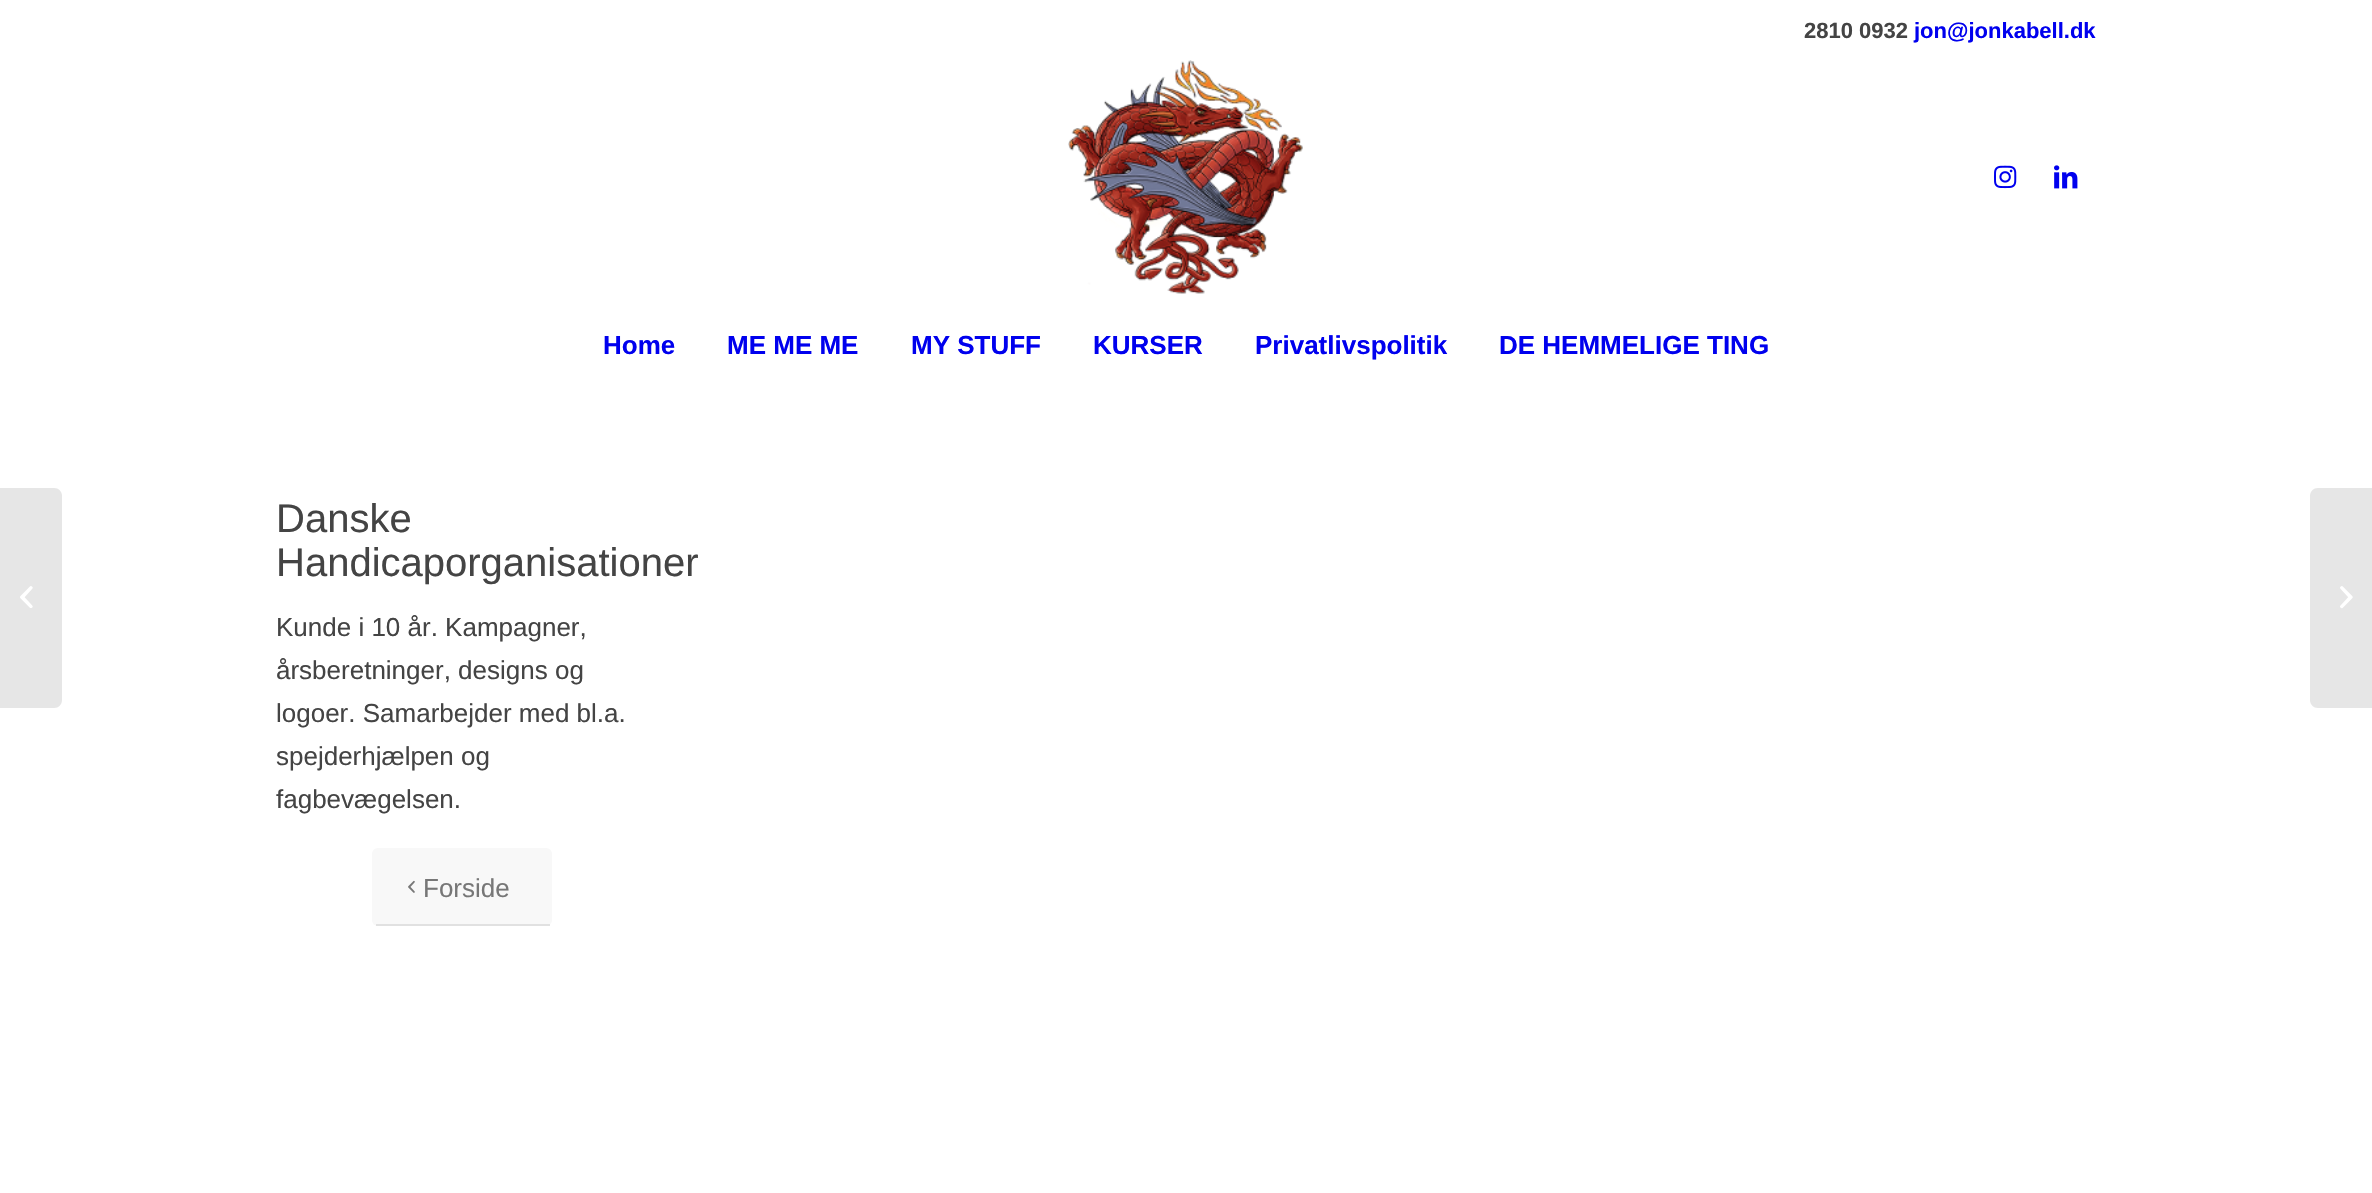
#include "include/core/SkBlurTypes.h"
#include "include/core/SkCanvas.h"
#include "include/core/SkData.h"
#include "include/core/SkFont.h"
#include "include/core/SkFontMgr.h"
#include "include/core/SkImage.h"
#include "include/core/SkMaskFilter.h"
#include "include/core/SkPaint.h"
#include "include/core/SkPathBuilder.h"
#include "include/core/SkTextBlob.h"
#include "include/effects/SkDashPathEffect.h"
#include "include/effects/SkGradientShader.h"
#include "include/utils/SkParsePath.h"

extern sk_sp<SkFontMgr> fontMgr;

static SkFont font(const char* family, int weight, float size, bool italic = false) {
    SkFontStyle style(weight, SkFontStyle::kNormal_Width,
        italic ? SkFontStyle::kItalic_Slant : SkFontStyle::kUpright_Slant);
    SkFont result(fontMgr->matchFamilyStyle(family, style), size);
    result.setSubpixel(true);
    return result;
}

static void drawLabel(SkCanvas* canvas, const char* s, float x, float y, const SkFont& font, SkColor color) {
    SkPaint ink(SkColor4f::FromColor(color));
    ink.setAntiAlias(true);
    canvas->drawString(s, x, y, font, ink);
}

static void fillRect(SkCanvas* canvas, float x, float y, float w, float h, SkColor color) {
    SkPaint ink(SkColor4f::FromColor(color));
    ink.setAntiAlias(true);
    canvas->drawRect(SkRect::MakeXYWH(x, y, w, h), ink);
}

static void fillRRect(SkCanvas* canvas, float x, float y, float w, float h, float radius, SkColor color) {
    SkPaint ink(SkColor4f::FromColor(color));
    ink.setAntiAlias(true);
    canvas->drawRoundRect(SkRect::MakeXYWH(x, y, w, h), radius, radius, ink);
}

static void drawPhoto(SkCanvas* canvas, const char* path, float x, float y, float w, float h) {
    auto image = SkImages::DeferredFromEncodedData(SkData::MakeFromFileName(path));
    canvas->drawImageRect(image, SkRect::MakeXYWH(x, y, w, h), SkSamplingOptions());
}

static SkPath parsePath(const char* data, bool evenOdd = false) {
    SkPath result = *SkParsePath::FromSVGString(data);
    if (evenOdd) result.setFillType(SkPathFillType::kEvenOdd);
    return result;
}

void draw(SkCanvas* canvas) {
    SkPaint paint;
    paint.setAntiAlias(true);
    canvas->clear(0xFFFFFFFF);
    SkFont font1 = font("Liberation Sans", 700, 22);
    drawLabel(canvas, "2810 0932", 1804, 38, font1, 0xFF444444);
    drawLabel(canvas, "jon@jonkabell.dk", 1914, 38, font1, 0xFF0000EE);
    drawPhoto(canvas, "assets/img1.png", 1068, 60, 235, 234);
    drawPhoto(canvas, "assets/img2.png", 1994, 165, 23, 24);
    drawPhoto(canvas, "assets/img3.png", 2054, 165, 24, 24);
    SkFont font2 = font("Liberation Sans", 700, 26);
    drawLabel(canvas, "Home", 603, 354, font2, 0xFF0000EE);
    drawLabel(canvas, "ME ME ME", 727, 354, font2, 0xFF0000EE);
    drawLabel(canvas, "MY STUFF", 911, 354, font2, 0xFF0000EE);
    drawLabel(canvas, "KURSER", 1093, 354, font2, 0xFF0000EE);
    drawLabel(canvas, "Privatlivspolitik", 1255, 354, font2, 0xFF0000EE);
    drawLabel(canvas, "DE HEMMELIGE TING", 1499, 354, font2, 0xFF0000EE);
    paint.setColor(0xFFE6E6E6);
    canvas->drawPath(parsePath("M0 488H54C58.5 488 62 491.5 62 496V700C62 704.5 58.5 708 54 708H0Z"), paint);
    drawPhoto(canvas, "assets/img4.png", 20, 586, 13, 22);
    SkFont font3 = font("Liberation Sans", 400, 40);
    drawLabel(canvas, "Danske", 276, 532, font3, 0xFF444444);
    drawLabel(canvas, "Handicaporganisationer", 276, 576, font3, 0xFF444444);
    SkFont font4 = font("Liberation Sans", 400, 26);
    drawLabel(canvas, "Kunde i 10 år. Kampagner,", 276, 636, font4, 0xFF444444);
    drawLabel(canvas, "årsberetninger, designs og", 276, 679, font4, 0xFF444444);
    drawLabel(canvas, "logoer. Samarbejder med bl.a.", 276, 722, font4, 0xFF444444);
    drawLabel(canvas, "spejderhjælpen og", 276, 765, font4, 0xFF444444);
    drawLabel(canvas, "fagbevægelsen.", 276, 808, font4, 0xFF444444);
    fillRRect(canvas, 372, 848, 180, 78, 6, 0xFFF8F8F8);
    fillRect(canvas, 376, 924, 174, 2, 0xFFE1E1E1);
    drawPhoto(canvas, "assets/img5.png", 408, 880, 7, 13);
    drawLabel(canvas, "Forside", 423, 897, font4, 0xFF777777);
    canvas->drawPath(parsePath("M2318 488H2372V708H2318C2313.5 708 2310 704.5 2310 700V496C2310 491.5 2313.5 488 2318 488Z"), paint);
    drawPhoto(canvas, "assets/img6.png", 2340, 586, 13, 23);
}
